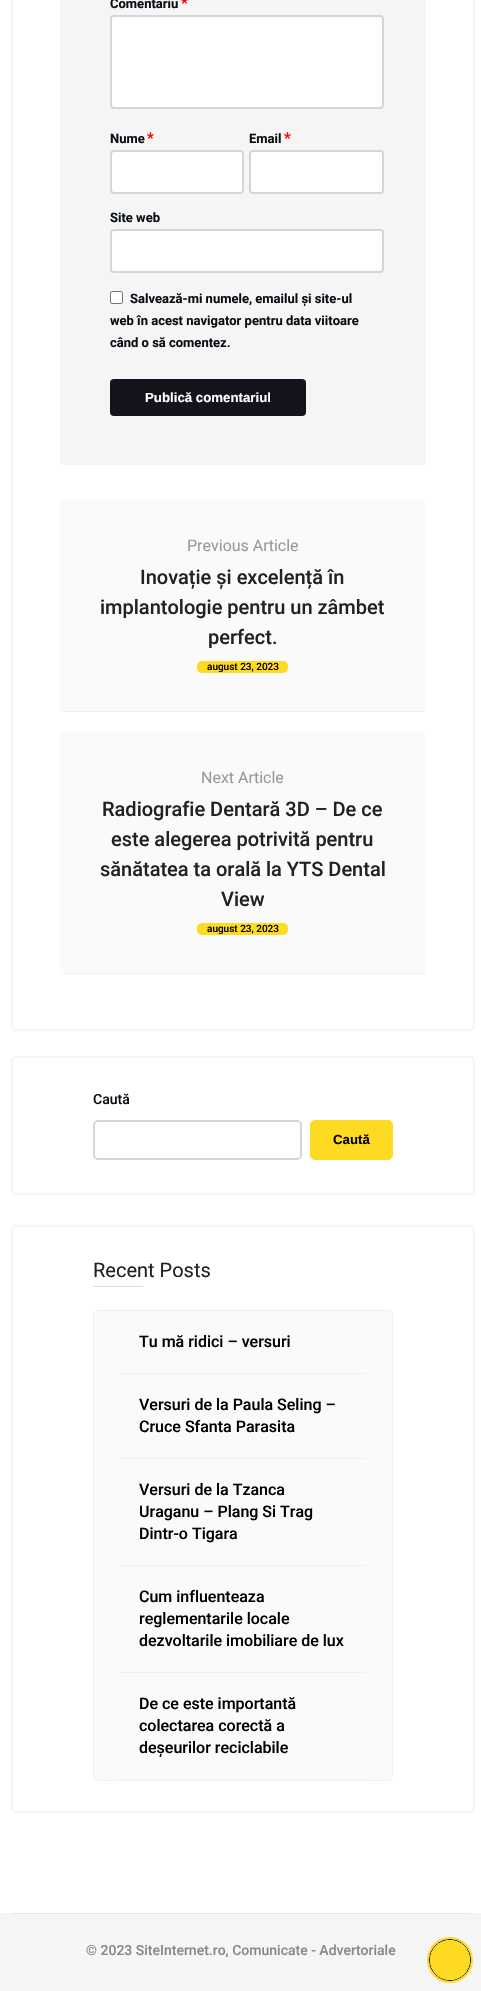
#include "include/core/SkBlurTypes.h"
#include "include/core/SkCanvas.h"
#include "include/core/SkData.h"
#include "include/core/SkFont.h"
#include "include/core/SkFontMgr.h"
#include "include/core/SkImage.h"
#include "include/core/SkMaskFilter.h"
#include "include/core/SkPaint.h"
#include "include/core/SkPathBuilder.h"
#include "include/core/SkTextBlob.h"
#include "include/effects/SkDashPathEffect.h"
#include "include/effects/SkGradientShader.h"
#include "include/utils/SkParsePath.h"

extern sk_sp<SkFontMgr> fontMgr;

static SkFont font(const char* family, int weight, float size, bool italic = false) {
    SkFontStyle style(weight, SkFontStyle::kNormal_Width,
        italic ? SkFontStyle::kItalic_Slant : SkFontStyle::kUpright_Slant);
    SkFont result(fontMgr->matchFamilyStyle(family, style), size);
    result.setSubpixel(true);
    return result;
}

static void drawLabel(SkCanvas* canvas, const char* s, float x, float y, const SkFont& font, SkColor color) {
    SkPaint ink(SkColor4f::FromColor(color));
    ink.setAntiAlias(true);
    canvas->drawString(s, x, y, font, ink);
}

static void fillRect(SkCanvas* canvas, float x, float y, float w, float h, SkColor color) {
    SkPaint ink(SkColor4f::FromColor(color));
    ink.setAntiAlias(true);
    canvas->drawRect(SkRect::MakeXYWH(x, y, w, h), ink);
}

static void fillRRect(SkCanvas* canvas, float x, float y, float w, float h, float radius, SkColor color) {
    SkPaint ink(SkColor4f::FromColor(color));
    ink.setAntiAlias(true);
    canvas->drawRoundRect(SkRect::MakeXYWH(x, y, w, h), radius, radius, ink);
}

void draw(SkCanvas* canvas) {
    SkPaint paint;
    paint.setAntiAlias(true);
    canvas->clear(0xFFFFFFFF);
    paint.setStroke(true);
    paint.setStrokeWidth(2);
    paint.setColor(0xFFF5F5F5);
    canvas->drawRoundRect(SkRect::MakeXYWH(12, -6, 462, 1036), 4, 4, paint);
    fillRRect(canvas, 60, -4, 366, 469, 4, 0xFFF5F5F5);
    SkFont font1 = font("Roboto", 700, 13);
    drawLabel(canvas, "Comentariu", 110, 8, font1, 0xFF080E14);
    SkFont font2 = font("Roboto", 700, 15);
    drawLabel(canvas, "*", 181, 8, font2, 0xFFFF0000);
    paint.setStroke(false);
    paint.setColor(0xFFFFFFFF);
    canvas->drawRoundRect(SkRect::MakeXYWH(111, 16, 272, 92), 3, 3, paint);
    paint.setStroke(true);
    paint.setColor(0xFFD5D6D8);
    canvas->drawRoundRect(SkRect::MakeXYWH(111, 16, 272, 92), 3, 3, paint);
    drawLabel(canvas, "Nume", 110, 143, font1, 0xFF080E14);
    drawLabel(canvas, "*", 147, 143, font2, 0xFFFF0000);
    paint.setStroke(false);
    paint.setColor(0xFFFFFFFF);
    canvas->drawRoundRect(SkRect::MakeXYWH(111, 151, 132, 42), 3, 3, paint);
    paint.setStroke(true);
    paint.setColor(0xFFD5D6D8);
    canvas->drawRoundRect(SkRect::MakeXYWH(111, 151, 132, 42), 3, 3, paint);
    drawLabel(canvas, "Email", 249, 143, font1, 0xFF080E14);
    drawLabel(canvas, "*", 284, 143, font2, 0xFFFF0000);
    paint.setStroke(false);
    paint.setColor(0xFFFFFFFF);
    canvas->drawRoundRect(SkRect::MakeXYWH(250, 151, 133, 42), 3, 3, paint);
    paint.setStroke(true);
    paint.setColor(0xFFD5D6D8);
    canvas->drawRoundRect(SkRect::MakeXYWH(250, 151, 133, 42), 3, 3, paint);
    drawLabel(canvas, "Site web", 110, 222, font1, 0xFF080E14);
    paint.setStroke(false);
    paint.setColor(0xFFFFFFFF);
    canvas->drawRoundRect(SkRect::MakeXYWH(111, 230, 272, 42), 3, 3, paint);
    paint.setStroke(true);
    paint.setColor(0xFFD5D6D8);
    canvas->drawRoundRect(SkRect::MakeXYWH(111, 230, 272, 42), 3, 3, paint);
    paint.setStroke(false);
    paint.setColor(0xFFFFFFFF);
    canvas->drawRoundRect(SkRect::MakeXYWH(110.5f, 291.5f, 12, 12), 1.5f, 1.5f, paint);
    paint.setStroke(true);
    paint.setStrokeWidth(1);
    paint.setColor(0xFF767676);
    canvas->drawRoundRect(SkRect::MakeXYWH(110.5f, 291.5f, 12, 12), 1.5f, 1.5f, paint);
    drawLabel(canvas, "Salvează-mi numele, emailul și site-ul", 130, 303, font1, 0xFF080E14);
    drawLabel(canvas, "web în acest navigator pentru data viitoare", 110, 325, font1, 0xFF080E14);
    drawLabel(canvas, "când o să comentez.", 110, 347, font1, 0xFF080E14);
    fillRRect(canvas, 110, 379, 196, 37, 4, 0xFF13131C);
    SkFont font3 = font("Liberation Sans", 700, 13.25f);
    drawLabel(canvas, "Publică comentariul", 145, 402, font3, 0xFFFFFFFF);
    fillRRect(canvas, 60, 500, 366, 212, 4, 0xFFFAFAFA);
    fillRect(canvas, 62, 711, 362, 1, 0xFFF1F1F1);
    SkFont font4 = font("Roboto", 400, 16);
    drawLabel(canvas, "Previous Article", 187, 551, font4, 0xFF999999);
    SkFont font5 = font("Roboto", 500, 20);
    drawLabel(canvas, "Inovație și excelență în", 140, 584, font5, 0xFF222222);
    drawLabel(canvas, "implantologie pentru un zâmbet", 100, 614, font5, 0xFF222222);
    drawLabel(canvas, "perfect.", 208, 644, font5, 0xFF222222);
    fillRRect(canvas, 197, 661, 91, 12, 5, 0xFFFFDA23);
    SkFont font6 = font("Roboto", 500, 10);
    drawLabel(canvas, "august 23, 2023", 207, 670, font6, 0xFF000000);
    fillRRect(canvas, 60, 732, 366, 242, 4, 0xFFFAFAFA);
    fillRect(canvas, 62, 973, 362, 1, 0xFFF1F1F1);
    drawLabel(canvas, "Next Article", 201, 783, font4, 0xFF999999);
    drawLabel(canvas, "Radiografie Dentară 3D – De ce", 102, 816, font5, 0xFF222222);
    drawLabel(canvas, "este alegerea potrivită pentru", 111, 846, font5, 0xFF222222);
    drawLabel(canvas, "sănătatea ta orală la YTS Dental", 100, 876, font5, 0xFF222222);
    drawLabel(canvas, "View", 221, 906, font5, 0xFF222222);
    fillRRect(canvas, 197, 923, 91, 12, 5, 0xFFFFDA23);
    drawLabel(canvas, "august 23, 2023", 207, 932, font6, 0xFF000000);
    paint.setStrokeWidth(2);
    paint.setColor(0xFFF5F5F5);
    canvas->drawRoundRect(SkRect::MakeXYWH(12, 1057, 462, 137), 4, 4, paint);
    SkFont font7 = font("Roboto", 500, 14);
    drawLabel(canvas, "Caută", 93, 1104, font7, 0xFF080E14);
    paint.setColor(0xFFD5D6D8);
    canvas->drawRoundRect(SkRect::MakeXYWH(94, 1121, 207, 38), 4, 4, paint);
    paint.setStroke(false);
    paint.setColor(0xFFFFDA23);
    canvas->drawRoundRect(SkRect::MakeXYWH(310.5f, 1120.5f, 82, 39), 4.5f, 4.5f, paint);
    paint.setStroke(true);
    paint.setStrokeWidth(1);
    canvas->drawRoundRect(SkRect::MakeXYWH(310.5f, 1120.5f, 82, 39), 4.5f, 4.5f, paint);
    drawLabel(canvas, "Caută", 333, 1144, font3, 0xFF000000);
    paint.setStrokeWidth(2);
    paint.setColor(0xFFF5F5F5);
    canvas->drawRoundRect(SkRect::MakeXYWH(12, 1226, 462, 586), 4, 4, paint);
    SkFont font8 = font("Roboto", 400, 20);
    drawLabel(canvas, "Recent Posts", 93, 1277, font8, 0xFF222222);
    fillRect(canvas, 93, 1286, 50, 1, 0xFFDCE2C0);
    paint.setStroke(false);
    paint.setColor(0xFFFAFAFA);
    canvas->drawRoundRect(SkRect::MakeXYWH(93.5f, 1310.5f, 299, 470), 4.5f, 4.5f, paint);
    paint.setStroke(true);
    paint.setStrokeWidth(1);
    paint.setColor(0xFFF1F1F1);
    canvas->drawRoundRect(SkRect::MakeXYWH(93.5f, 1310.5f, 299, 470), 4.5f, 4.5f, paint);
    fillRect(canvas, 119, 1373, 248, 1, 0xFFF1F1F1);
    SkFont font9 = font("Roboto", 500, 16);
    drawLabel(canvas, "Tu mă ridici – versuri", 139, 1347, font9, 0xFF000000);
    fillRect(canvas, 119, 1458, 248, 1, 0xFFF1F1F1);
    drawLabel(canvas, "Versuri de la Paula Seling –", 139, 1410, font9, 0xFF000000);
    drawLabel(canvas, "Cruce Sfanta Parasita", 139, 1432, font9, 0xFF000000);
    fillRect(canvas, 119, 1565, 248, 1, 0xFFF1F1F1);
    drawLabel(canvas, "Versuri de la Tzanca", 139, 1495, font9, 0xFF000000);
    drawLabel(canvas, "Uraganu – Plang Si Trag", 139, 1517, font9, 0xFF000000);
    drawLabel(canvas, "Dintr-o Tigara", 139, 1539, font9, 0xFF000000);
    fillRect(canvas, 119, 1672, 248, 1, 0xFFF1F1F1);
    drawLabel(canvas, "Cum influenteaza", 139, 1602, font9, 0xFF000000);
    drawLabel(canvas, "reglementarile locale", 139, 1624, font9, 0xFF000000);
    drawLabel(canvas, "dezvoltarile imobiliare de lux", 139, 1646, font9, 0xFF000000);
    fillRect(canvas, 119, 1779, 248, 1, 0xFFF1F1F1);
    drawLabel(canvas, "De ce este importantă", 139, 1709, font9, 0xFF000000);
    drawLabel(canvas, "colectarea corectă a", 139, 1731, font9, 0xFF000000);
    drawLabel(canvas, "deșeurilor reciclabile", 139, 1753, font9, 0xFF000000);
    fillRect(canvas, 0, 1913, 481, 78, 0xFFF5F5F5);
    fillRect(canvas, 11, 1913, 460, 1, 0xFFE6E6E6);
    drawLabel(canvas, "© 2023 SiteInternet.ro, Comunicate - Advertoriale", 86, 1955, font7, 0xFF888888);
    paint.setColor(0xFF000000);
    canvas->drawCircle(450, 1960, 20.5f, paint);
    paint.setStroke(false);
    paint.setColor(0xFFFFDA23);
    canvas->drawCircle(450, 1960, 20, paint);
    paint.setStroke(true);
    paint.setStrokeWidth(2);
    canvas->drawCircle(450, 1960, 22, paint);
}
